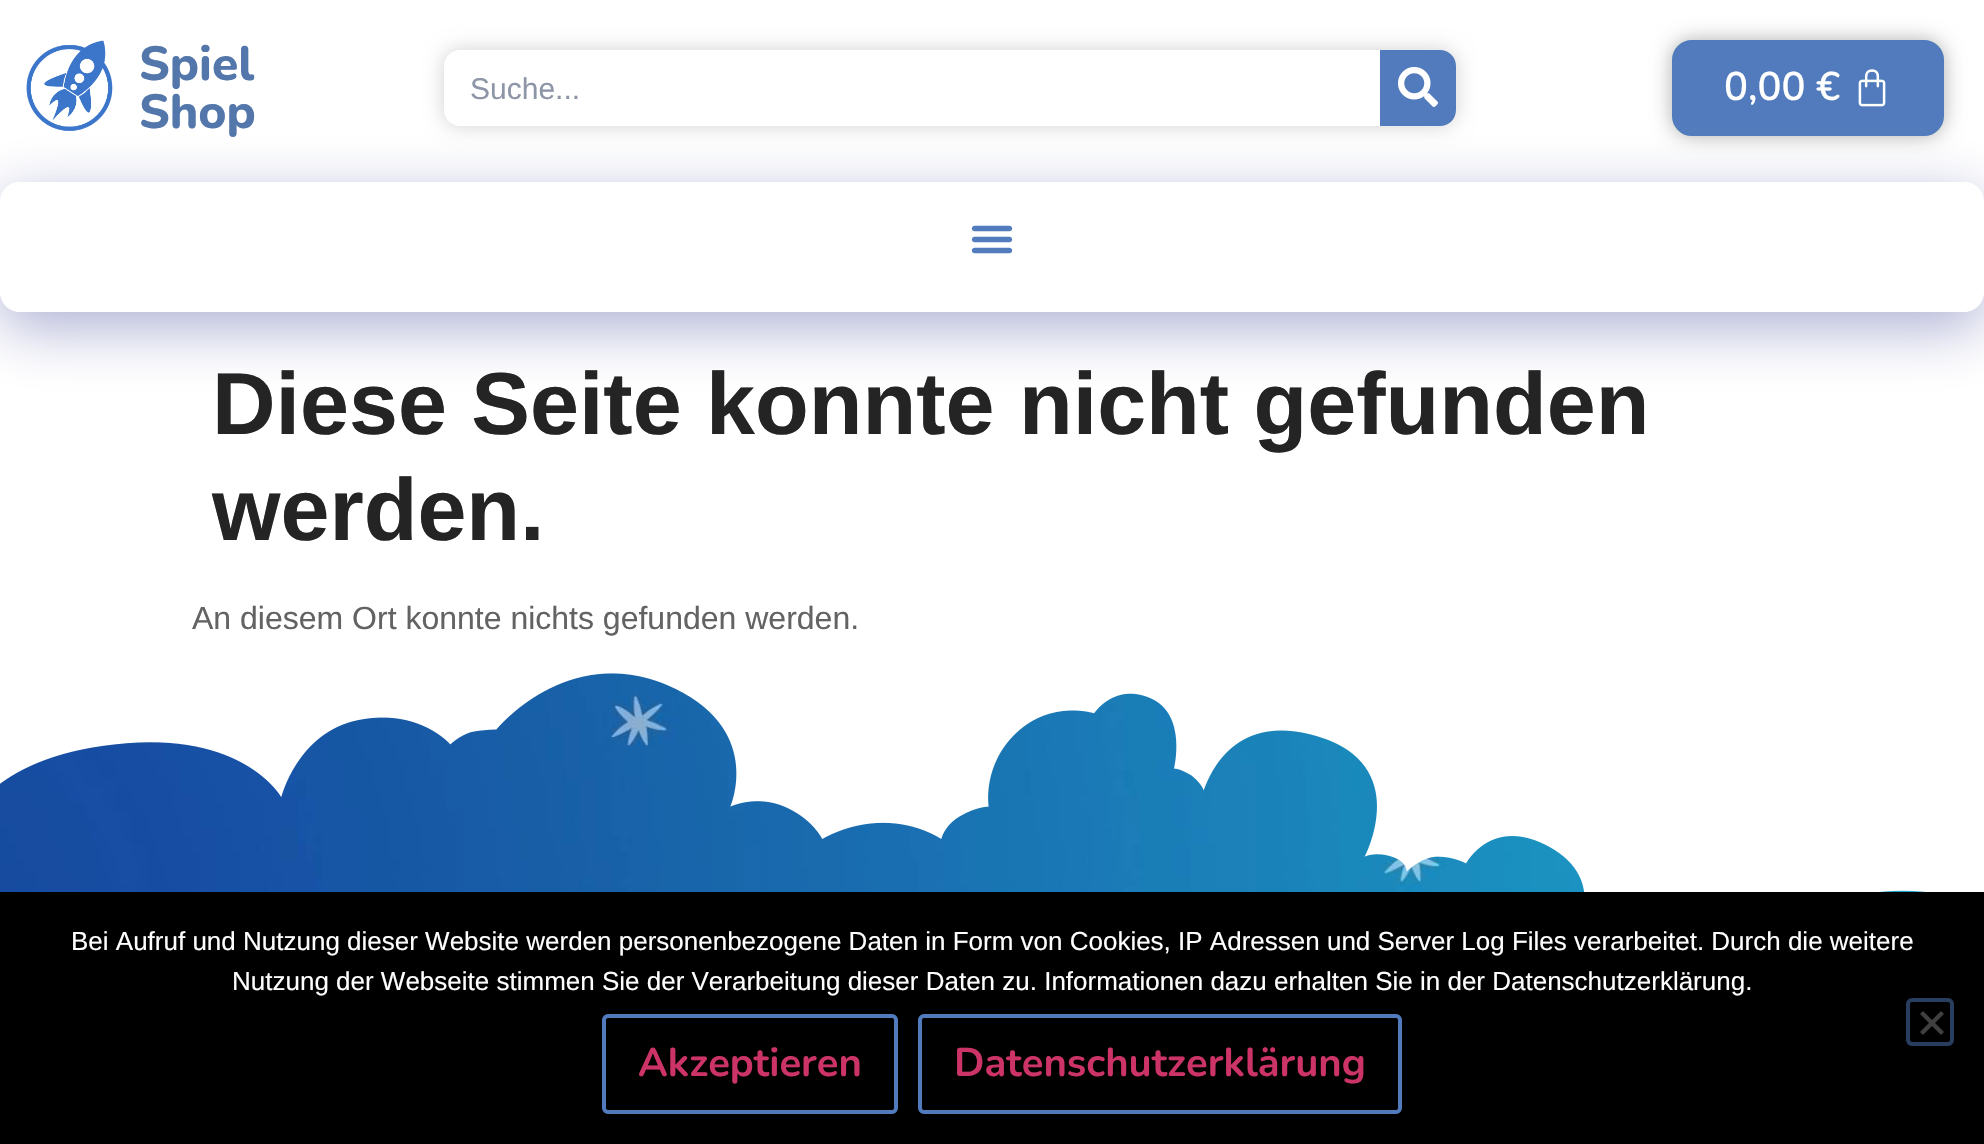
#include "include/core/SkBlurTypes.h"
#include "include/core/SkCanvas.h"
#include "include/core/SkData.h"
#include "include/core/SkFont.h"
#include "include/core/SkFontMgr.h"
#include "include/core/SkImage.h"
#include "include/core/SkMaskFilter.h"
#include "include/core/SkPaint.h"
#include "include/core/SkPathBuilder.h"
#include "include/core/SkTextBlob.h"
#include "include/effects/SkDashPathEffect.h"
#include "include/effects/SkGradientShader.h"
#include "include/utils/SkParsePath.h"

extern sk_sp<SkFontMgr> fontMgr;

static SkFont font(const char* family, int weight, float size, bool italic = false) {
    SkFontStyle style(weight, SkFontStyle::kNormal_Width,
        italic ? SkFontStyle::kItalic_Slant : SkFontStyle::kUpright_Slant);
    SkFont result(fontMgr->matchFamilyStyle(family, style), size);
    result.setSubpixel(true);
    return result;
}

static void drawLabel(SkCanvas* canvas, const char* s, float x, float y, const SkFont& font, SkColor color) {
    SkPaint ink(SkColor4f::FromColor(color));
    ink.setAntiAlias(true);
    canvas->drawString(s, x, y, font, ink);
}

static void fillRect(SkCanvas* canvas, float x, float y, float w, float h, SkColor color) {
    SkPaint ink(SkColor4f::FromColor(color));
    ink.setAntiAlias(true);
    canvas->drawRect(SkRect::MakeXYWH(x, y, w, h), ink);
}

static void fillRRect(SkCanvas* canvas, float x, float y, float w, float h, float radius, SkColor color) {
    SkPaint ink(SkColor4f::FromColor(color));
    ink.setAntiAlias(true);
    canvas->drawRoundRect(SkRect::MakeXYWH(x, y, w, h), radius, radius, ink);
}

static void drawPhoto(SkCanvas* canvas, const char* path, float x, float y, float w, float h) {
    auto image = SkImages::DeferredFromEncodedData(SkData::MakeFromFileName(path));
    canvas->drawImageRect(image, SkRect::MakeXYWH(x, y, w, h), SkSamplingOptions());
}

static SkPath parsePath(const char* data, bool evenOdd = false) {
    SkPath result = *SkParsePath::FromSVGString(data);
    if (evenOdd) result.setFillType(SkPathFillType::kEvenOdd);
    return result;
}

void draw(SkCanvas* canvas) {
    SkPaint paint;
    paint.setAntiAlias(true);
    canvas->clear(0xFFFFFFFF);
    drawPhoto(canvas, "assets/img1.png", 26, 40, 87, 91);
    SkFont font1 = font("Nunito", 800, 48);
    drawLabel(canvas, "Spiel", 139, 80, font1, 0xFF5376AB);
    drawLabel(canvas, "Shop", 139, 128, font1, 0xFF5376AB);
    paint.setColor(0x2E000000);
    paint.setMaskFilter(SkMaskFilter::MakeBlur(kNormal_SkBlurStyle, 10));
    canvas->drawRoundRect(SkRect::MakeXYWH(444, 50, 1012, 76), 16, 16, paint);
    paint.setMaskFilter(nullptr);
    fillRRect(canvas, 444, 50, 1012, 76, 16, 0xFFFFFFFF);
    SkFont font2 = font("Liberation Sans", 400, 30);
    drawLabel(canvas, "Suche...", 470, 99, font2, 0xFF8D95A7);
    paint.setColor(0xFF517BBC);
    canvas->drawPath(parsePath("M1380 50H1440C1449 50 1456 57 1456 66V110C1456 119 1449 126 1440 126H1380Z"), paint);
    drawPhoto(canvas, "assets/img2.png", 1398, 67, 40, 40);
    paint.setColor(0x4F000000);
    paint.setMaskFilter(SkMaskFilter::MakeBlur(kNormal_SkBlurStyle, 10));
    canvas->drawRoundRect(SkRect::MakeXYWH(1672, 40, 272, 96), 20, 20, paint);
    paint.setMaskFilter(nullptr);
    paint.setColor(0xFF517BBC);
    canvas->drawRoundRect(SkRect::MakeXYWH(1674, 42, 268, 92), 18, 18, paint);
    paint.setStroke(true);
    paint.setStrokeWidth(4);
    canvas->drawRoundRect(SkRect::MakeXYWH(1674, 42, 268, 92), 18, 18, paint);
    SkFont font3 = font("Nunito", 600, 40);
    drawLabel(canvas, "0,00 €", 1724, 100, font3, 0xFFFFFFFF);
    drawPhoto(canvas, "assets/img3.png", 1858, 69, 28, 38);
    canvas->save();
    canvas->clipPath(parsePath("M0 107H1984V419H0ZM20 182H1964C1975 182 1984 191 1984 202V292C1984 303 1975 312 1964 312H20C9 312 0 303 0 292V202C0 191 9 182 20 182Z", true), true);
    paint.setStroke(false);
    paint.setColor(0x5E1F2687);
    paint.setMaskFilter(SkMaskFilter::MakeBlur(kNormal_SkBlurStyle, 30));
    canvas->drawRoundRect(SkRect::MakeXYWH(0, 198, 1984, 130), 20, 20, paint);
    paint.setMaskFilter(nullptr);
    canvas->restore();
    fillRRect(canvas, 0, 182, 1984, 130, 20, 0x73FFFFFF);
    drawPhoto(canvas, "assets/img4.png", 971, 225, 42, 29);
    SkFont font4 = font("Liberation Sans", 700, 88);
    drawLabel(canvas, "Diese Seite konnte nicht gefunden", 212, 434, font4, 0xFF242424);
    drawLabel(canvas, "werden.", 212, 540, font4, 0xFF242424);
    SkFont font5 = font("Liberation Sans", 400, 32);
    drawLabel(canvas, "An diesem Ort konnte nichts gefunden werden.", 192, 629, font5, 0xFF636363);
    drawPhoto(canvas, "assets/img5.png", 0, 673, 1926, 219);
    drawPhoto(canvas, "assets/img6.png", 0, 672, 1984, 220);
    fillRect(canvas, 0, 892, 1984, 252, 0xFF000000);
    SkFont font6 = font("Liberation Sans", 400, 26);
    drawLabel(canvas, "Bei Aufruf und Nutzung dieser Website werden personenbezogene Daten in Form von Cookies, IP Adressen und Server Log Files verarbeitet. Durch die weitere", 71, 950, font6, 0xFFFFFFFF);
    drawLabel(canvas, "Nutzung der Webseite stimmen Sie der Verarbeitung dieser Daten zu. Informationen dazu erhalten Sie in der Datenschutzerklärung.", 232, 990, font6, 0xFFFFFFFF);
    paint.setStroke(true);
    paint.setColor(0xFF293E5E);
    canvas->drawRoundRect(SkRect::MakeXYWH(1908, 1000, 44, 44), 4, 4, paint);
    paint.setStroke(false);
    paint.setColor(0xFF404040);
    canvas->drawPath(parsePath("M1941 1011L1944 1014L1923 1035L1920 1032Z"), paint);
    canvas->drawPath(parsePath("M1920 1014L1923 1011L1944 1032L1941 1035Z"), paint);
    paint.setStroke(true);
    paint.setColor(0xFF517BBC);
    canvas->drawRoundRect(SkRect::MakeXYWH(604, 1016, 292, 96), 4, 4, paint);
    SkFont font7 = font("Nunito", 700, 40);
    drawLabel(canvas, "Akzeptieren", 638, 1076, font7, 0xFFCC3366);
    canvas->drawRoundRect(SkRect::MakeXYWH(920, 1016, 480, 96), 4, 4, paint);
    drawLabel(canvas, "Datenschutzerklärung", 954, 1076, font7, 0xFFCC3366);
}
